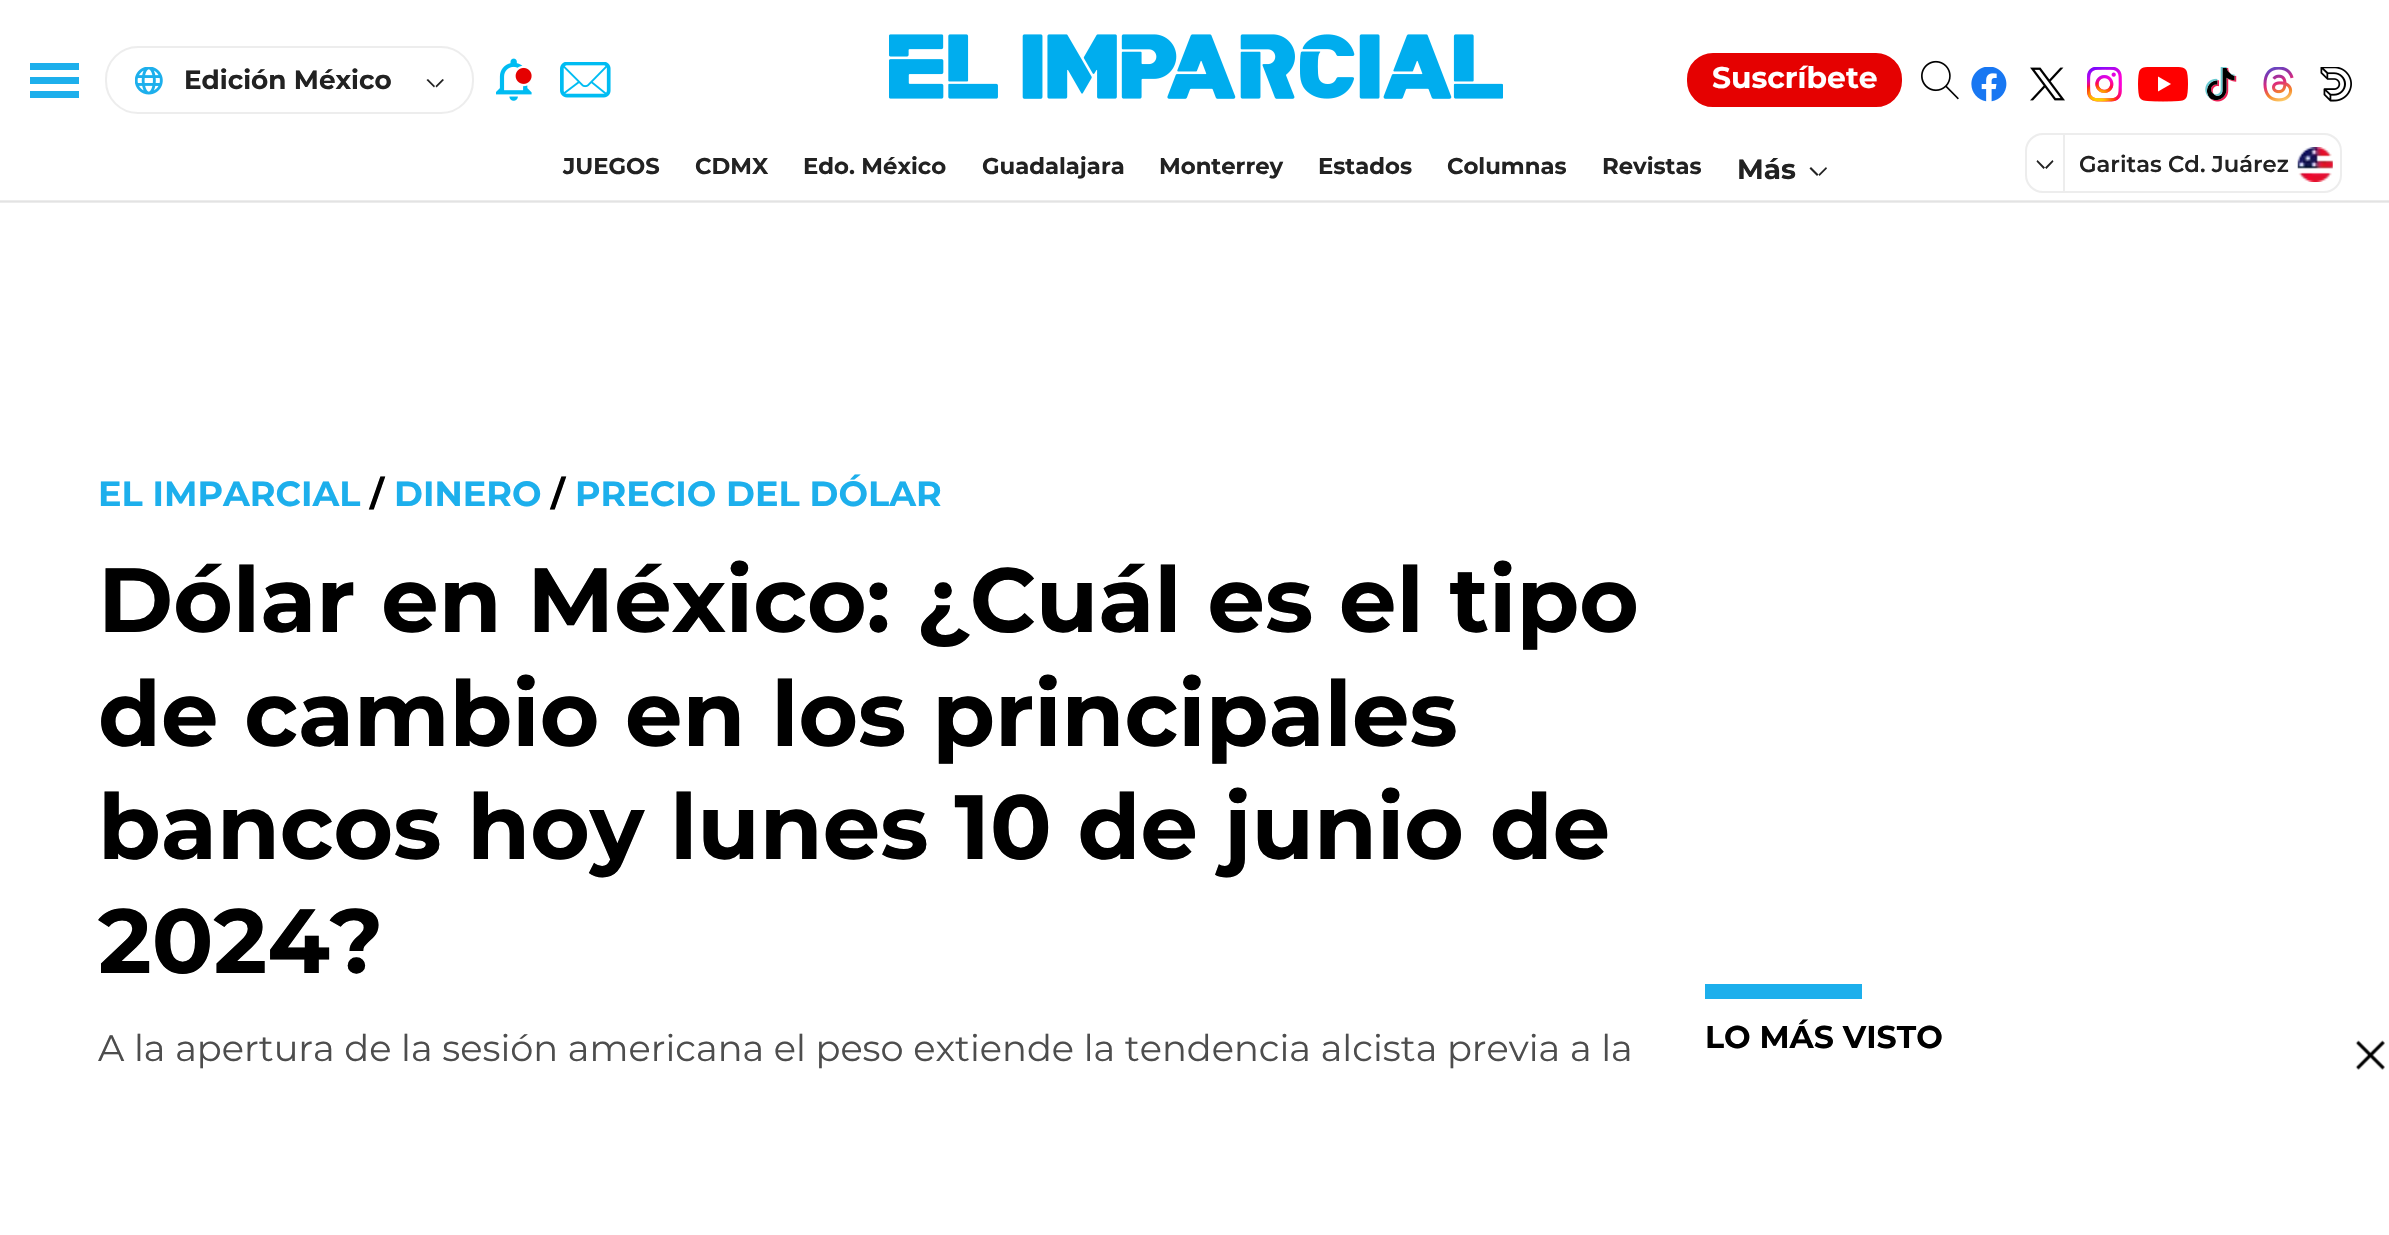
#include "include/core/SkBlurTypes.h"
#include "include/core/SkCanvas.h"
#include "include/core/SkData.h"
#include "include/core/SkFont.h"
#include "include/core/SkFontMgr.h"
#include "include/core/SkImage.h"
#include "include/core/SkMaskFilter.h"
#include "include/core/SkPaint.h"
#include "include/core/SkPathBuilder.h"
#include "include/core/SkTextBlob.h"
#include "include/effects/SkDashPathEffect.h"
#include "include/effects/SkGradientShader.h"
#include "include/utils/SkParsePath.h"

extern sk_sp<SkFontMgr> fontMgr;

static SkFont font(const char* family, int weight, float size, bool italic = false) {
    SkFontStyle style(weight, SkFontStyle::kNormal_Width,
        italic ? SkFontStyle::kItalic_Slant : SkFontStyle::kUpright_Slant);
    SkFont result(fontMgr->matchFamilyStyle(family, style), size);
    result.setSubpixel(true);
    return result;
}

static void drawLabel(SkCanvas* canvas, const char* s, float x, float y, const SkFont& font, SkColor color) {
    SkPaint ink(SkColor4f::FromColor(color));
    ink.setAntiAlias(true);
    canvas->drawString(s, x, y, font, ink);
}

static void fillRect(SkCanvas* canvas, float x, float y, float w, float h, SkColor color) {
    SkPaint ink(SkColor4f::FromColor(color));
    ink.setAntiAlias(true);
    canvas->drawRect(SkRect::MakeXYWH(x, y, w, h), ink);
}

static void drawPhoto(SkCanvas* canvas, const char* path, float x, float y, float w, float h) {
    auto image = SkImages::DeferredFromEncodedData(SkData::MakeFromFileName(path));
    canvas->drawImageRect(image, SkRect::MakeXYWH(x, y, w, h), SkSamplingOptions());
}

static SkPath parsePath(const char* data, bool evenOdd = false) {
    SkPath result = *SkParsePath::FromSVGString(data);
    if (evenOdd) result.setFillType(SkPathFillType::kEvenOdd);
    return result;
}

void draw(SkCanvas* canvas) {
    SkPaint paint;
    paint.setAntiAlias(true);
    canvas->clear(0xFFFFFFFF);
    fillRect(canvas, 0, 200, 2389, 1, 0xFFECECEC);
    fillRect(canvas, 0, 202, 2389, 1, 0xFFECECEC);
    fillRect(canvas, 0, 201, 2389, 1, 0xFFE3E3E3);
    fillRect(canvas, 30, 77, 49, 7, 0xFF1DAFEC);
    fillRect(canvas, 30, 63, 49, 7, 0xFF1DAFEC);
    fillRect(canvas, 30, 91, 49, 7, 0xFF1DAFEC);
    paint.setStroke(true);
    paint.setStrokeWidth(2);
    paint.setColor(0xFFEDEDED);
    canvas->drawRoundRect(SkRect::MakeXYWH(106, 47, 367, 66), 32, 32, paint);
    drawPhoto(canvas, "assets/img1.png", 135, 67, 28, 28);
    SkFont font1 = font("Montserrat", 700, 26.25f);
    drawLabel(canvas, "Edición México", 184, 89, font1, 0xFF222222);
    paint.setStroke(false);
    paint.setColor(0xFF222222);
    canvas->drawPath(parsePath("M426.5 80L428 79L435 86L434 87.5ZM442.5 79L444 80L436.5 87.5L435.5 86Z"), paint);
    drawPhoto(canvas, "assets/img2.png", 496, 58, 36, 43);
    drawPhoto(canvas, "assets/img3.png", 560, 62, 51, 36);
    drawPhoto(canvas, "assets/img4.png", 889, 34, 614, 65);
    paint.setColor(0xFFE50101);
    canvas->drawRoundRect(SkRect::MakeXYWH(1688, 54, 213, 52), 25, 25, paint);
    paint.setStroke(true);
    canvas->drawRoundRect(SkRect::MakeXYWH(1688, 54, 213, 52), 25, 25, paint);
    SkFont font2 = font("Montserrat", 700, 29.75f);
    drawLabel(canvas, "Suscríbete", 1712, 88, font2, 0xFFFFFFFF);
    drawPhoto(canvas, "assets/img5.png", 1921, 60, 38, 40);
    drawPhoto(canvas, "assets/img6.png", 1971, 67, 36, 35);
    drawPhoto(canvas, "assets/img7.png", 2030, 67, 35, 34);
    drawPhoto(canvas, "assets/img8.png", 2087, 67, 35, 35);
    drawPhoto(canvas, "assets/img9.png", 2138, 67, 50, 35);
    drawPhoto(canvas, "assets/img10.png", 2205, 67, 32, 35);
    drawPhoto(canvas, "assets/img11.png", 2263, 67, 31, 35);
    drawPhoto(canvas, "assets/img12.png", 2320, 67, 32, 35);
    SkFont font3 = font("Montserrat", 700, 22.75f);
    drawLabel(canvas, "JUEGOS", 563, 174, font3, 0xFF222222);
    drawLabel(canvas, "CDMX", 695, 174, font3, 0xFF222222);
    drawLabel(canvas, "Edo. México", 803, 174, font3, 0xFF222222);
    drawLabel(canvas, "Guadalajara", 982, 174, font3, 0xFF222222);
    drawLabel(canvas, "Monterrey", 1159, 174, font3, 0xFF222222);
    drawLabel(canvas, "Estados", 1318, 174, font3, 0xFF222222);
    drawLabel(canvas, "Columnas", 1447, 174, font3, 0xFF222222);
    drawLabel(canvas, "Revistas", 1602, 174, font3, 0xFF222222);
    SkFont font4 = font("Montserrat", 700, 28);
    drawLabel(canvas, "Más", 1737, 179, font4, 0xFF222222);
    paint.setStroke(false);
    paint.setColor(0xFF222222);
    canvas->drawPath(parsePath("M1809.5 168.5L1811 167L1818.5 174.5L1817 176Z"), paint);
    canvas->drawPath(parsePath("M1826 167L1827 168.5L1819.5 176L1818.5 174.5Z"), paint);
    paint.setStroke(true);
    paint.setColor(0xFFEDEDED);
    canvas->drawRoundRect(SkRect::MakeXYWH(2026, 134, 315, 58), 17, 17, paint);
    fillRect(canvas, 2063, 133, 2, 60, 0xFFEDEDED);
    paint.setStroke(false);
    paint.setColor(0xFF222222);
    canvas->drawPath(parsePath("M2036.5 161.5L2037.5 160L2045 167.5L2043.5 169ZM2052.5 160L2053.5 161.5L2046.5 169L2045 167.5Z"), paint);
    SkFont font5 = font("Montserrat", 600, 22.75f);
    drawLabel(canvas, "Garitas Cd. Juárez", 2079, 172, font5, 0xFF222222);
    drawPhoto(canvas, "assets/img13.png", 2297, 147, 36, 35);
    SkFont font6 = font("Montserrat", 700, 35);
    drawLabel(canvas, "EL IMPARCIAL", 98, 506, font6, 0xFF1DAFEC);
    drawLabel(canvas, "/", 370, 506, font6, 0xFF000000);
    drawLabel(canvas, "DINERO", 394, 506, font6, 0xFF1DAFEC);
    drawLabel(canvas, "/", 551, 506, font6, 0xFF000000);
    drawLabel(canvas, "PRECIO DEL DÓLAR", 575, 506, font6, 0xFF1DAFEC);
    SkFont font7 = font("Montserrat", 700, 91);
    drawLabel(canvas, "Dólar en México: ¿Cuál es el tipo", 98, 632, font7, 0xFF000000);
    drawLabel(canvas, "de cambio en los principales", 98, 746, font7, 0xFF000000);
    drawLabel(canvas, "bancos hoy lunes 10 de junio de", 98, 859, font7, 0xFF000000);
    drawLabel(canvas, "2024?", 98, 973, font7, 0xFF000000);
    SkFont font8 = font("Montserrat", 400, 36.75f);
    drawLabel(canvas, "A la apertura de la sesión americana el peso extiende la tendencia alcista previa a la", 98, 1061, font8, 0xFF4D4D4D);
    fillRect(canvas, 1705, 984, 157, 15, 0xFF1DAFEC);
    SkFont font9 = font("Montserrat", 700, 31.5f);
    drawLabel(canvas, "LO MÁS VISTO", 1705, 1048, font9, 0xFF000000);
    drawPhoto(canvas, "assets/img14.png", 2355, 1040, 30, 30);
}
